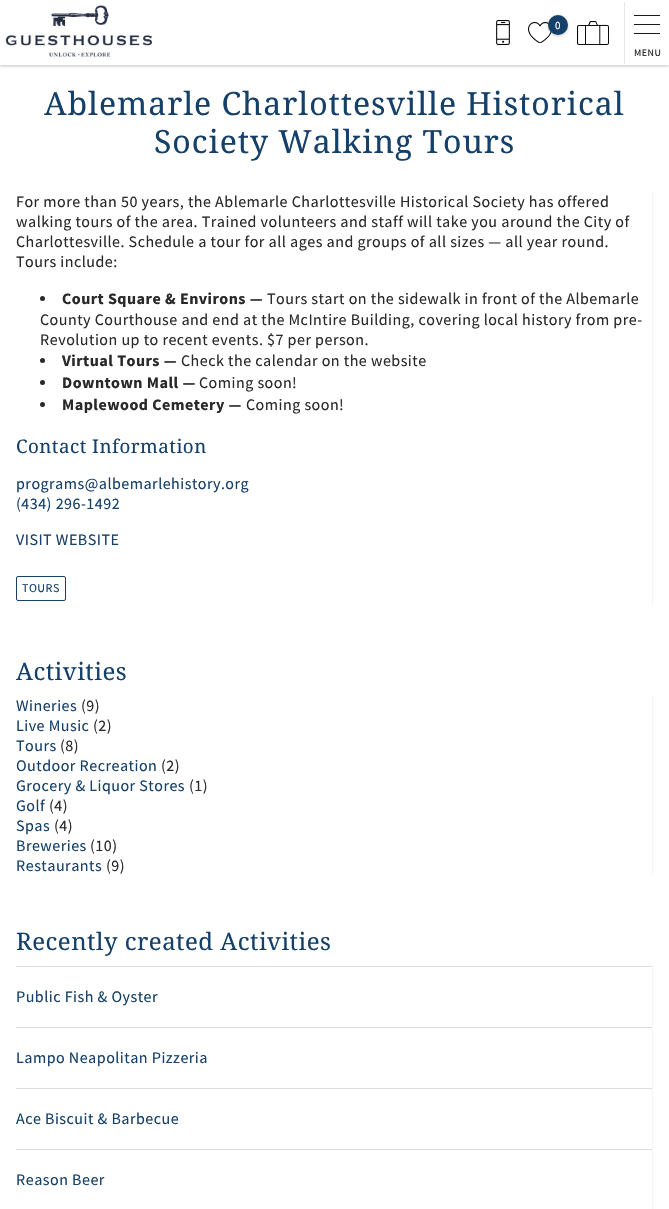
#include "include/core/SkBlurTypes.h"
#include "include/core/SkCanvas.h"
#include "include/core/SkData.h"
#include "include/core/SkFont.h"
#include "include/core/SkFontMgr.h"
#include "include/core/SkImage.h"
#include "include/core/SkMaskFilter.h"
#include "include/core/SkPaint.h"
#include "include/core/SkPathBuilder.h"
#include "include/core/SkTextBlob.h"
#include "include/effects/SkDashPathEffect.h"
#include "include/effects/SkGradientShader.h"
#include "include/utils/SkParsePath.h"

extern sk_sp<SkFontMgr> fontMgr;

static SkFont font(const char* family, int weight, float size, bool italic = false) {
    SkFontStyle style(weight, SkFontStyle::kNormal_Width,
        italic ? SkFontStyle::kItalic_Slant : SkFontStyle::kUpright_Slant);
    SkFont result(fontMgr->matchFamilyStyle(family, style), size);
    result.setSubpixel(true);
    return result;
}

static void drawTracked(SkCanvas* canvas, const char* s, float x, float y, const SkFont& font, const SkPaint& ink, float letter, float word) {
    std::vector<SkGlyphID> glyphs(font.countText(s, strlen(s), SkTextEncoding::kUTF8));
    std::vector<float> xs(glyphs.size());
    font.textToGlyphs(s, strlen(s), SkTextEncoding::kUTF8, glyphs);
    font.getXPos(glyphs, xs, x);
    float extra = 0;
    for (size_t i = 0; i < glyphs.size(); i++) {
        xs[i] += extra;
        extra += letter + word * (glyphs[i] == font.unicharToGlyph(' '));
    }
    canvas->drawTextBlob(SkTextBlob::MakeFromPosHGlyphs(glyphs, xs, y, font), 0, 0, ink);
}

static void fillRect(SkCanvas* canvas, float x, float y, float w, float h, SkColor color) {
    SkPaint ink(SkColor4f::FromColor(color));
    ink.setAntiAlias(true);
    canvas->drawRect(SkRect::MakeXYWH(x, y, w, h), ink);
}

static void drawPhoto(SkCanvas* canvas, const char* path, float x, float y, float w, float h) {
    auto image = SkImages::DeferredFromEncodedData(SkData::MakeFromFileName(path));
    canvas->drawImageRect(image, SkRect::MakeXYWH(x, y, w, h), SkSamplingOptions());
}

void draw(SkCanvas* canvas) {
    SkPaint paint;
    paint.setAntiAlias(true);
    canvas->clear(0xFFFFFFFF);
    canvas->save();
    canvas->clipRect(SkRect::MakeXYWH(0, 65, 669, 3));
    paint.setColor(0x40111111);
    paint.setMaskFilter(SkMaskFilter::MakeBlur(kNormal_SkBlurStyle, 1.5f));
    canvas->drawRect(SkRect::MakeXYWH(0, 1, 669, 65), paint);
    paint.setMaskFilter(nullptr);
    canvas->restore();
    drawPhoto(canvas, "assets/img1.png", 5, 5, 147, 52);
    drawPhoto(canvas, "assets/img2.png", 496, 20, 14, 25);
    drawPhoto(canvas, "assets/img3.png", 528, 22, 24, 21);
    paint.setMaskFilter(SkMaskFilter::MakeBlur(kNormal_SkBlurStyle, 1.5f));
    canvas->drawRoundRect(SkRect::MakeXYWH(548, 16, 20, 20), 10, 10, paint);
    paint.setMaskFilter(nullptr);
    paint.setColor(0xFF154069);
    canvas->drawCircle(558, 25, 10, paint);
    SkFont font1 = font("Source Sans Pro", 400, 11);
    paint.setColor(0xFFFFFFFF);
    drawTracked(canvas, "0", 555, 29, font1, paint, 0.48f, 0);
    drawPhoto(canvas, "assets/img4.png", 577, 21, 32, 24);
    fillRect(canvas, 624, 2, 1, 62, 0xFFE7E7E7);
    fillRect(canvas, 634, 24, 26, 1, 0xFF1A1A1A);
    fillRect(canvas, 634, 15, 26, 1, 0xFF1A1A1A);
    fillRect(canvas, 634, 33, 26, 1, 0xFF1A1A1A);
    SkFont font2 = font("Source Sans Pro", 400, 10);
    paint.setColor(0xFF1A1A1A);
    drawTracked(canvas, "MENU", 634, 56, font2, paint, 0.5f, 0);
    SkFont font3 = font("Droid Serif", 400, 32);
    paint.setColor(0xFF154069);
    drawTracked(canvas, "Ablemarle Charlottesville Historical", 44, 115, font3, paint, 0.95f, 0);
    drawTracked(canvas, "Society Walking Tours", 154, 153, font3, paint, 0.95f, 0);
    fillRect(canvas, 652, 192, 1, 414, 0xFFF5F5F5);
    SkFont font4 = font("Source Sans Pro", 400, 16);
    paint.setColor(0xFF292929);
    drawTracked(canvas, "For more than 50 years, the Ablemarle Charlottesville Historical Society has offered", 16, 207, font4, paint, 0.48f, 0);
    drawTracked(canvas, "walking tours of the area. Trained volunteers and staff will take you around the City of", 16, 227, font4, paint, 0.48f, 0);
    drawTracked(canvas, "Charlottesville. Schedule a tour for all ages and groups of all sizes — all year round.", 16, 247, font4, paint, 0.48f, 0);
    drawTracked(canvas, "Tours include:", 16, 267, font4, paint, 0.48f, 0);
    canvas->drawCircle(42.5f, 298.5f, 2.5f, paint);
    SkFont font5 = font("Source Sans Pro", 700, 16);
    drawTracked(canvas, "Court Square & Environs —", 62, 304, font5, paint, 0.48f, 0);
    drawTracked(canvas, "Tours start on the sidewalk in front of the Albemarle", 267, 304, font4, paint, 0.48f, 0);
    drawTracked(canvas, "County Courthouse and end at the McIntire Building, covering local history from pre-", 40, 325, font4, paint, 0.48f, 0);
    drawTracked(canvas, "Revolution up to recent events. $7 per person.", 40, 345, font4, paint, 0.48f, 0);
    canvas->drawCircle(42.5f, 360.5f, 2.5f, paint);
    drawTracked(canvas, "Virtual Tours —", 62, 366, font5, paint, 0.48f, 0);
    drawTracked(canvas, "Check the calendar on the website", 181, 366, font4, paint, 0.48f, 0);
    canvas->drawCircle(42.5f, 382.5f, 2.5f, paint);
    drawTracked(canvas, "Downtown Mall —", 62, 388, font5, paint, 0.48f, 0);
    drawTracked(canvas, "Coming soon!", 199, 388, font4, paint, 0.48f, 0);
    canvas->drawCircle(42.5f, 404.5f, 2.5f, paint);
    drawTracked(canvas, "Maplewood Cemetery —", 62, 410, font5, paint, 0.48f, 0);
    drawTracked(canvas, "Coming soon!", 246, 410, font4, paint, 0.48f, 0);
    SkFont font6 = font("Droid Serif", 400, 18.75f);
    paint.setColor(0xFF154069);
    drawTracked(canvas, "Contact Information", 16, 453, font6, paint, 0.48f, 0);
    drawTracked(canvas, "programs@albemarlehistory.org", 16, 489, font4, paint, 0.48f, 0);
    drawTracked(canvas, "(434) 296-1492", 16, 509, font4, paint, 0.48f, 0);
    drawTracked(canvas, "VISIT WEBSITE", 16, 545, font4, paint, 0.48f, 0);
    paint.setStroke(true);
    paint.setStrokeWidth(1);
    canvas->drawRoundRect(SkRect::MakeXYWH(16.5f, 576.5f, 49, 24), 1.5f, 1.5f, paint);
    SkFont font7 = font("Source Sans Pro", 400, 12);
    paint.setStroke(false);
    drawTracked(canvas, "TOURS", 22, 592, font7, paint, 0.48f, 0);
    SkFont font8 = font("Droid Serif", 400, 24);
    drawTracked(canvas, "Activities", 16, 680, font8, paint, 0.48f, 0);
    fillRect(canvas, 652, 696, 1, 180, 0xFFF5F5F5);
    drawTracked(canvas, "Wineries", 16, 711, font4, paint, 0.48f, 0);
    paint.setColor(0xFF292929);
    drawTracked(canvas, "(9)", 81, 711, font4, paint, 0.48f, 0);
    paint.setColor(0xFF154069);
    drawTracked(canvas, "Live Music", 16, 731, font4, paint, 0.48f, 0);
    paint.setColor(0xFF292929);
    drawTracked(canvas, "(2)", 93, 731, font4, paint, 0.48f, 0);
    paint.setColor(0xFF154069);
    drawTracked(canvas, "Tours", 16, 751, font4, paint, 0.48f, 0);
    paint.setColor(0xFF292929);
    drawTracked(canvas, "(8)", 60, 751, font4, paint, 0.48f, 0);
    paint.setColor(0xFF154069);
    drawTracked(canvas, "Outdoor Recreation", 16, 771, font4, paint, 0.48f, 0);
    paint.setColor(0xFF292929);
    drawTracked(canvas, "(2)", 161, 771, font4, paint, 0.48f, 0);
    paint.setColor(0xFF154069);
    drawTracked(canvas, "Grocery & Liquor Stores", 16, 791, font4, paint, 0.48f, 0);
    paint.setColor(0xFF292929);
    drawTracked(canvas, "(1)", 189, 791, font4, paint, 0.48f, 0);
    paint.setColor(0xFF154069);
    drawTracked(canvas, "Golf", 16, 811, font4, paint, 0.48f, 0);
    paint.setColor(0xFF292929);
    drawTracked(canvas, "(4)", 49, 811, font4, paint, 0.48f, 0);
    paint.setColor(0xFF154069);
    drawTracked(canvas, "Spas", 16, 831, font4, paint, 0.48f, 0);
    paint.setColor(0xFF292929);
    drawTracked(canvas, "(4)", 54, 831, font4, paint, 0.48f, 0);
    paint.setColor(0xFF154069);
    drawTracked(canvas, "Breweries", 16, 851, font4, paint, 0.48f, 0);
    paint.setColor(0xFF292929);
    drawTracked(canvas, "(10)", 90, 851, font4, paint, 0.48f, 0);
    paint.setColor(0xFF154069);
    drawTracked(canvas, "Restaurants", 16, 871, font4, paint, 0.48f, 0);
    paint.setColor(0xFF292929);
    drawTracked(canvas, "(9)", 106, 871, font4, paint, 0.48f, 0);
    paint.setColor(0xFF154069);
    drawTracked(canvas, "Recently created Activities", 16, 950, font8, paint, 0.48f, 0);
    fillRect(canvas, 652, 966, 1, 243, 0xFFF5F5F5);
    fillRect(canvas, 16, 966, 636, 1, 0xFFDBDBDB);
    drawTracked(canvas, "Public Fish & Oyster", 16, 1002, font4, paint, 0.48f, 0);
    fillRect(canvas, 16, 1027, 636, 1, 0xFFDBDBDB);
    drawTracked(canvas, "Lampo Neapolitan Pizzeria", 16, 1063, font4, paint, 0.48f, 0);
    fillRect(canvas, 16, 1088, 636, 1, 0xFFDBDBDB);
    drawTracked(canvas, "Ace Biscuit & Barbecue", 16, 1124, font4, paint, 0.48f, 0);
    fillRect(canvas, 16, 1149, 636, 1, 0xFFDBDBDB);
    drawTracked(canvas, "Reason Beer", 16, 1185, font4, paint, 0.48f, 0);
}
